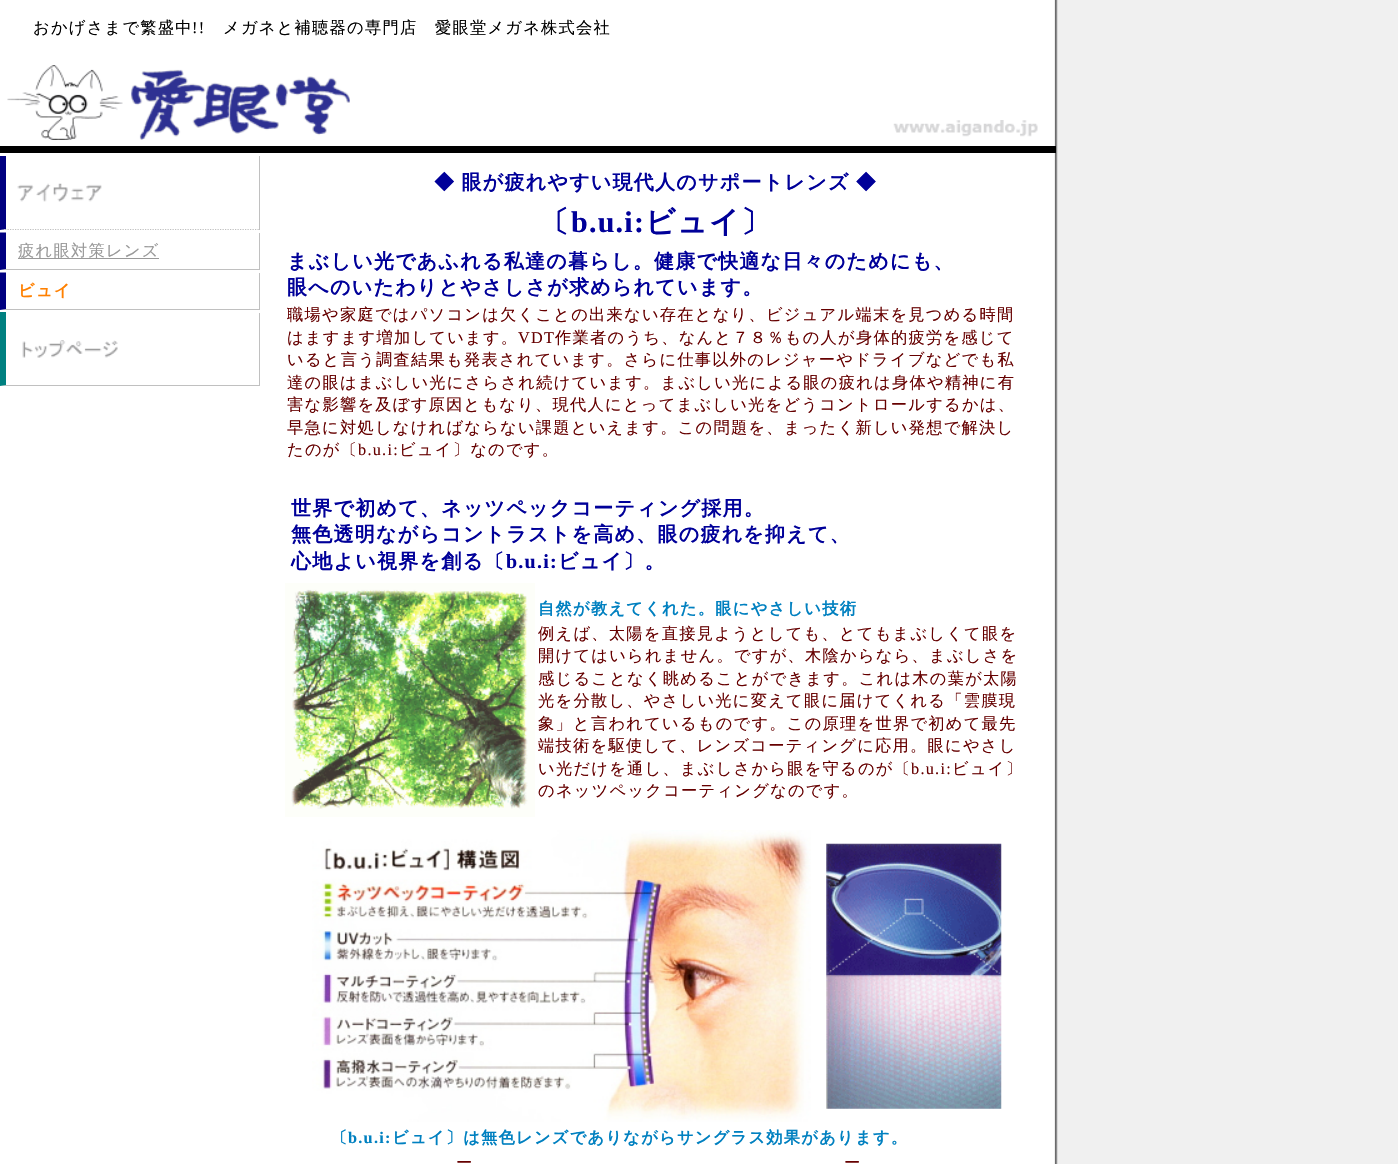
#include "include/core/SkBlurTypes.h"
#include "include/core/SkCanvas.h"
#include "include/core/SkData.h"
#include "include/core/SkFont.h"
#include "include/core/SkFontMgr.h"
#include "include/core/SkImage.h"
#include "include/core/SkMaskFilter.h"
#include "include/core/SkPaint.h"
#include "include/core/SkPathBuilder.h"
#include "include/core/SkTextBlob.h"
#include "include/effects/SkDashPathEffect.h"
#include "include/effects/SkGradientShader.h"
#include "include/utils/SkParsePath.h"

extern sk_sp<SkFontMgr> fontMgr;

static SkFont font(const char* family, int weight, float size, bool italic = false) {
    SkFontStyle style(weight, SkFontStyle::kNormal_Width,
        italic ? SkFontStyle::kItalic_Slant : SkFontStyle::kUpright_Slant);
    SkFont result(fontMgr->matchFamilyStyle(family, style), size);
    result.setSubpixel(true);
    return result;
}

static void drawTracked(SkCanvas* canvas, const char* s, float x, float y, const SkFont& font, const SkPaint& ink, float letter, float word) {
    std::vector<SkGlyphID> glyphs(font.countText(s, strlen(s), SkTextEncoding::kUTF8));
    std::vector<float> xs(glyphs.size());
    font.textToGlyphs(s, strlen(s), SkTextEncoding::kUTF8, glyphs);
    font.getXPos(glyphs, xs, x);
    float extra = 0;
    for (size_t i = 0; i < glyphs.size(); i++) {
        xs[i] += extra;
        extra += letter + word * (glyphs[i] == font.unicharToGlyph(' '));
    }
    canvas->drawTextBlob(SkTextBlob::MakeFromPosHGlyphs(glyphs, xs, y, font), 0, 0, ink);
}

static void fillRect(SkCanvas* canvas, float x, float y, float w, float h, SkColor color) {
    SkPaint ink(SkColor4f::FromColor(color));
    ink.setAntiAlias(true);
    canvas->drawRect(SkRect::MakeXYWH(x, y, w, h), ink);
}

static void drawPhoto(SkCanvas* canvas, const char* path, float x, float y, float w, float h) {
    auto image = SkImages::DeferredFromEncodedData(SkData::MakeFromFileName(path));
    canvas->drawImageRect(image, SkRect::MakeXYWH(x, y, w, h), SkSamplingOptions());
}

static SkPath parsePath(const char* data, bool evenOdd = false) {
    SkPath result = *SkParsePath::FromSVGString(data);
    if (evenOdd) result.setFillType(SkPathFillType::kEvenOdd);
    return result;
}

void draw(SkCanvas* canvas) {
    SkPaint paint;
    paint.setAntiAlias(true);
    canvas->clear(0xFFF0F0F0);
    drawPhoto(canvas, "assets/img1.png", 0, 0, 1058, 1164);
    SkFont font1 = font("WenQuanYi Zen Hei", 500, 16.25f);
    paint.setColor(0xFF000000);
    drawTracked(canvas, "おかげさまで繁盛中", 33, 33, font1, paint, 1.25f, 0);
    SkFont font2 = font("Liberation Serif", 400, 16.25f);
    drawTracked(canvas, "!!", 192, 33, font2, paint, 1.25f, 0);
    drawTracked(canvas, "メガネと補聴器の専門店　愛眼堂メガネ株式会社", 223, 33, font1, paint, 1.25f, 0);
    drawPhoto(canvas, "assets/img2.png", 7, 65, 343, 75);
    drawPhoto(canvas, "assets/img3.png", 893, 120, 145, 17);
    fillRect(canvas, 0, 146, 1056, 7, 0xFF000000);
    fillRect(canvas, 259, 233, 1, 37, 0xFFC0C0C0);
    paint.setColor(0xFFC0C0C0);
    canvas->drawPath(parsePath("M260 270H0L6 269H259Z"), paint);
    paint.setColor(0xFF000080);
    canvas->drawPath(parsePath("M0 270V232.5H6V269Z"), paint);
    fillRect(canvas, 18, 258, 141, 1, 0xFF999999);
    paint.setColor(0xFF999999);
    drawTracked(canvas, "疲れ眼対策レンズ", 18, 256, font1, paint, 1.25f, 0);
    fillRect(canvas, 259, 156, 1, 74, 0xFFC0C0C0);
    paint.setStroke(true);
    paint.setStrokeWidth(1.2f);
    paint.setColor(0xFFC0C0C0);
    paint.setPathEffect(SkDashPathEffect::Make({{1.25f, 1.25f}}, 0));
    canvas->drawPath(parsePath("M0 229.5H260"), paint);
    paint.setPathEffect(nullptr);
    paint.setStroke(false);
    paint.setColor(0xFF000080);
    canvas->drawPath(parsePath("M0 230V156H6V229Z"), paint);
    drawPhoto(canvas, "assets/img4.png", 17, 183, 85, 19);
    SkFont font3 = font("WenQuanYi Zen Hei", 700, 20);
    paint.setColor(0xFF000099);
    drawTracked(canvas, "◆ 眼が疲れやすい現代人のサポートレンズ ◆", 434, 189, font3, paint, 1.25f, -1);
    SkFont font4 = font("WenQuanYi Zen Hei", 700, 30);
    drawTracked(canvas, "〔", 539, 232, font4, paint, 1.25f, 0);
    SkFont font5 = font("Liberation Serif", 700, 30);
    drawTracked(canvas, "b.u.i:", 571, 232, font5, paint, 1.25f, 0);
    drawTracked(canvas, "ビュイ〕", 645, 232, font4, paint, 1.25f, 0);
    drawTracked(canvas, "まぶしい光であふれる私達の暮らし。健康で快適な日々のためにも、", 287, 268, font3, paint, 1.25f, 0);
    drawTracked(canvas, "眼へのいたわりとやさしさが求められています。", 287, 294, font3, paint, 1.25f, 0);
    paint.setColor(0xFF660000);
    drawTracked(canvas, "職場や家庭ではパソコンは欠くことの出来ない存在となり、ビジュアル端末を見つめる時間", 287, 320, font1, paint, 1.25f, 0);
    drawTracked(canvas, "はますます増加しています。", 287, 343, font1, paint, 1.25f, 0);
    drawTracked(canvas, "VDT", 518, 343, font2, paint, 1.25f, 0);
    drawTracked(canvas, "作業者のうち、なんと７８％もの人が身体的疲労を感じて", 555, 343, font1, paint, 1.25f, 0);
    drawTracked(canvas, "いると言う調査結果も発表されています。さらに仕事以外のレジャーやドライブなどでも私", 287, 365, font1, paint, 1.25f, 0);
    drawTracked(canvas, "達の眼はまぶしい光にさらされ続けています。まぶしい光による眼の疲れは身体や精神に有", 287, 388, font1, paint, 1.25f, 0);
    drawTracked(canvas, "害な影響を及ぼす原因ともなり、現代人にとってまぶしい光をどうコントロールするかは、", 287, 410, font1, paint, 1.25f, 0);
    drawTracked(canvas, "早急に対処しなければならない課題といえます。この問題を、まったく新しい発想で解決し", 287, 433, font1, paint, 1.25f, 0);
    drawTracked(canvas, "たのが〔", 287, 455, font1, paint, 1.25f, 0);
    drawTracked(canvas, "b.u.i:", 358, 455, font2, paint, 1.25f, 0);
    drawTracked(canvas, "ビュイ〕なのです。", 399, 455, font1, paint, 1.25f, 0);
    paint.setColor(0xFF000099);
    drawTracked(canvas, "世界で初めて、ネッツペックコーティング採用。", 291, 515, font3, paint, 1.25f, 0);
    drawTracked(canvas, "無色透明ながらコントラストを高め、眼の疲れを抑えて、", 291, 541, font3, paint, 1.25f, 0);
    drawTracked(canvas, "心地よい視界を創る〔", 291, 568, font3, paint, 1.25f, 0);
    SkFont font6 = font("Liberation Serif", 700, 20);
    drawTracked(canvas, "b.u.i:", 506, 568, font6, paint, 1.25f, 0);
    drawTracked(canvas, "ビュイ〕。", 558, 568, font3, paint, 1.25f, 0);
    drawPhoto(canvas, "assets/img5.png", 285, 583, 250, 234);
    SkFont font7 = font("WenQuanYi Zen Hei", 700, 16.25f);
    paint.setColor(0xFF0080C0);
    drawTracked(canvas, "自然が教えてくれた。眼にやさしい技術", 538, 614, font7, paint, 1.25f, 0);
    paint.setColor(0xFF660000);
    drawTracked(canvas, "例えば、太陽を直接見ようとしても、とてもまぶしくて眼を", 538, 639, font1, paint, 1.25f, 0);
    drawTracked(canvas, "開けてはいられません。ですが、木陰からなら、まぶしさを", 538, 661, font1, paint, 1.25f, 0);
    drawTracked(canvas, "感じることなく眺めることができます。これは木の葉が太陽", 538, 684, font1, paint, 1.25f, 0);
    drawTracked(canvas, "光を分散し、やさしい光に変えて眼に届けてくれる「雲膜現", 538, 706, font1, paint, 1.25f, 0);
    drawTracked(canvas, "象」と言われているものです。この原理を世界で初めて最先", 538, 729, font1, paint, 1.25f, 0);
    drawTracked(canvas, "端技術を駆使して、レンズコーティングに応用。眼にやさし", 538, 751, font1, paint, 1.25f, 0);
    drawTracked(canvas, "い光だけを通し、まぶしさから眼を守るのが〔", 538, 774, font1, paint, 1.25f, 0);
    drawTracked(canvas, "b.u.i:", 911, 774, font2, paint, 1.25f, 0);
    drawTracked(canvas, "ビュイ〕", 952, 774, font1, paint, 1.25f, 0);
    drawTracked(canvas, "のネッツペックコーティングなのです。", 538, 796, font1, paint, 1.25f, 0);
    drawPhoto(canvas, "assets/img6.png", 312, 830, 499, 292);
    drawPhoto(canvas, "assets/img7.png", 826, 843, 176, 266);
    paint.setColor(0xFF0080C0);
    drawTracked(canvas, "〔", 331, 1143, font7, paint, 1.25f, 0);
    SkFont font8 = font("Liberation Serif", 700, 16.25f);
    drawTracked(canvas, "b.u.i:", 348, 1143, font8, paint, 1.25f, 0);
    drawTracked(canvas, "ビュイ〕は無色レンズでありながらサングラス効果があります。", 392, 1143, font7, paint, 1.25f, 0);
    paint.setColor(0xFF660000);
    drawTracked(canvas, "ー", 456, 1168, font1, paint, 1.25f, 0);
    drawTracked(canvas, "ー", 844, 1168, font1, paint, 1.25f, 0);
    fillRect(canvas, 259, 273, 1, 37, 0xFFC0C0C0);
    paint.setColor(0xFFC0C0C0);
    canvas->drawPath(parsePath("M260 310H0L6 309H259Z"), paint);
    paint.setColor(0xFF000080);
    canvas->drawPath(parsePath("M0 310V272.5H6V309Z"), paint);
    paint.setColor(0xFFFF8000);
    drawTracked(canvas, "ビュイ", 18, 296, font7, paint, 1.25f, 0);
    fillRect(canvas, 259, 313, 1, 73, 0xFFC0C0C0);
    paint.setColor(0xFFC0C0C0);
    canvas->drawPath(parsePath("M260 386H0L6 385H259Z"), paint);
    paint.setColor(0xFF008080);
    canvas->drawPath(parsePath("M0 386V312H6V385Z"), paint);
    drawPhoto(canvas, "assets/img8.png", 22, 340, 96, 18);
}
